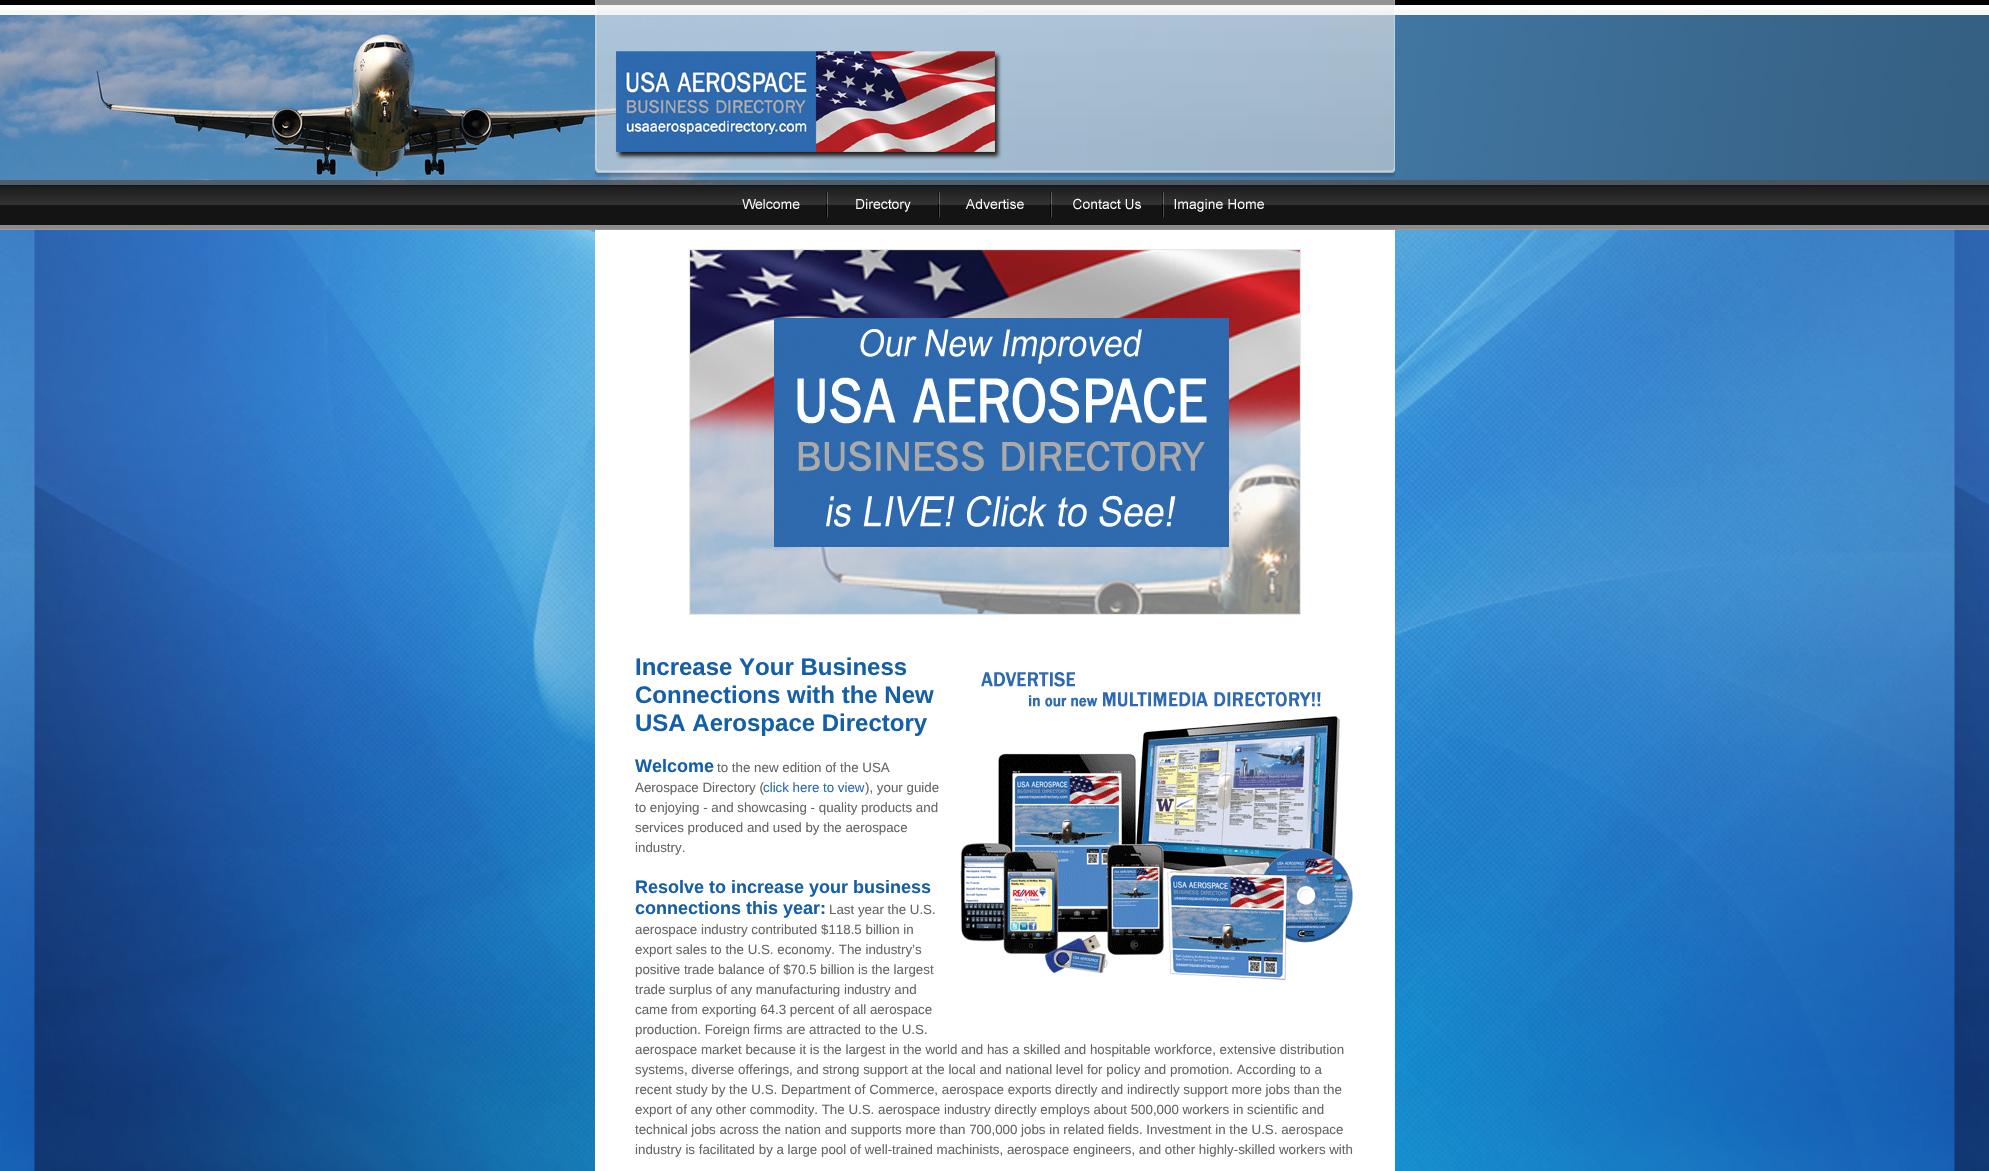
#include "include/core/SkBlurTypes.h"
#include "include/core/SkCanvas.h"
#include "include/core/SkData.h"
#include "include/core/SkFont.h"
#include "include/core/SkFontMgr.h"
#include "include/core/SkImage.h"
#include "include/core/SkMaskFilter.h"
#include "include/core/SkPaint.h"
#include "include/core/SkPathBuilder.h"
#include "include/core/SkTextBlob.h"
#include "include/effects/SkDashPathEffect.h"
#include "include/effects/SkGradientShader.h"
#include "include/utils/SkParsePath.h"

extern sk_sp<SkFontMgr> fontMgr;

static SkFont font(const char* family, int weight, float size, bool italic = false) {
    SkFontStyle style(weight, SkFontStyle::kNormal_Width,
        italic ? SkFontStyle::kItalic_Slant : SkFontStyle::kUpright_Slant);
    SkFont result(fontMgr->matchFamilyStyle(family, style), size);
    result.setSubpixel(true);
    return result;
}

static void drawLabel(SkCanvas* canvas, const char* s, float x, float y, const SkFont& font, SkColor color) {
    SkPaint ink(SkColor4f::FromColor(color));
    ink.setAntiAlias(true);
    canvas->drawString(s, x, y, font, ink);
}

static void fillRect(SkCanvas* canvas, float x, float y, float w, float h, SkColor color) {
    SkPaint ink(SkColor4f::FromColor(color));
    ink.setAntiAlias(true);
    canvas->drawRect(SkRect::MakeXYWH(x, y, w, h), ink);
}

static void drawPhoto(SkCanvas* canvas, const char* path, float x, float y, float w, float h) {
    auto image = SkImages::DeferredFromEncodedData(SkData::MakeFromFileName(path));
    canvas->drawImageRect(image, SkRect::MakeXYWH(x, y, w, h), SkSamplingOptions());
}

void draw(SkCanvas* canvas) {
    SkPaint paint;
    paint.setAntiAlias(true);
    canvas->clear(0xFFFFFFFF);
    drawPhoto(canvas, "assets/img1.png", 0, 230, 1989, 941);
    drawPhoto(canvas, "assets/img2.png", 0, 0, 1989, 230);
    drawPhoto(canvas, "assets/img3.png", 595, 0, 800, 177);
    drawPhoto(canvas, "assets/img4.png", 741, 195, 62, 14);
    drawPhoto(canvas, "assets/img5.png", 826, 186, 2, 32);
    drawPhoto(canvas, "assets/img6.png", 854, 193, 59, 23);
    drawPhoto(canvas, "assets/img5.png", 938, 186, 2, 32);
    drawPhoto(canvas, "assets/img7.png", 965, 195, 60, 14);
    drawPhoto(canvas, "assets/img5.png", 1050, 186, 2, 32);
    drawPhoto(canvas, "assets/img8.png", 1069, 194, 78, 16);
    drawPhoto(canvas, "assets/img5.png", 1162, 186, 2, 32);
    drawPhoto(canvas, "assets/img9.png", 1174, 195, 92, 17);
    fillRect(canvas, 595, 230, 800, 941, 0xFFFFFFFF);
    drawPhoto(canvas, "assets/img10.png", 689, 249, 612, 366);
    SkFont font1 = font("Liberation Sans", 700, 24);
    drawLabel(canvas, "Increase Your Business", 635, 675, font1, 0xFF155FA8);
    drawLabel(canvas, "Connections with the New", 635, 703, font1, 0xFF155FA8);
    drawLabel(canvas, "USA Aerospace Directory", 635, 731, font1, 0xFF155FA8);
    drawPhoto(canvas, "assets/img11.png", 960, 672, 393, 308);
    SkFont font2 = font("Liberation Sans", 700, 18);
    drawLabel(canvas, "Welcome", 635, 772, font2, 0xFF155FA8);
    SkFont font3 = font("Liberation Sans", 400, 13.33f);
    drawLabel(canvas, "to the new edition of the USA", 717, 772, font3, 0xFF666666);
    drawLabel(canvas, "Aerospace Directory (", 635, 792, font3, 0xFF666666);
    drawLabel(canvas, "click here to view", 763, 792, font3, 0xFF2E69AE);
    drawLabel(canvas, "), your guide", 865, 792, font3, 0xFF666666);
    drawLabel(canvas, "to enjoying - and showcasing - quality products and", 635, 812, font3, 0xFF666666);
    drawLabel(canvas, "services produced and used by the aerospace", 635, 832, font3, 0xFF666666);
    drawLabel(canvas, "industry.", 635, 852, font3, 0xFF666666);
    drawLabel(canvas, "Resolve to increase your business", 635, 893, font2, 0xFF155FA8);
    drawLabel(canvas, "connections this year:", 635, 914, font2, 0xFF155FA8);
    drawLabel(canvas, "Last year the U.S.", 829, 914, font3, 0xFF666666);
    drawLabel(canvas, "aerospace industry contributed $118.5 billion in", 635, 934, font3, 0xFF666666);
    drawLabel(canvas, "export sales to the U.S. economy. The industry’s", 635, 954, font3, 0xFF666666);
    drawLabel(canvas, "positive trade balance of $70.5 billion is the largest", 635, 974, font3, 0xFF666666);
    drawLabel(canvas, "trade surplus of any manufacturing industry and", 635, 994, font3, 0xFF666666);
    drawLabel(canvas, "came from exporting 64.3 percent of all aerospace", 635, 1014, font3, 0xFF666666);
    drawLabel(canvas, "production. Foreign firms are attracted to the U.S.", 635, 1034, font3, 0xFF666666);
    drawLabel(canvas, "aerospace market because it is the largest in the world and has a skilled and hospitable workforce, extensive distribution", 635, 1054, font3, 0xFF666666);
    drawLabel(canvas, "systems, diverse offerings, and strong support at the local and national level for policy and promotion. According to a", 635, 1074, font3, 0xFF666666);
    drawLabel(canvas, "recent study by the U.S. Department of Commerce, aerospace exports directly and indirectly support more jobs than the", 635, 1094, font3, 0xFF666666);
    drawLabel(canvas, "export of any other commodity. The U.S. aerospace industry directly employs about 500,000 workers in scientific and", 635, 1114, font3, 0xFF666666);
    drawLabel(canvas, "technical jobs across the nation and supports more than 700,000 jobs in related fields. Investment in the U.S. aerospace", 635, 1134, font3, 0xFF666666);
    drawLabel(canvas, "industry is facilitated by a large pool of well-trained machinists, aerospace engineers, and other highly-skilled workers with", 635, 1154, font3, 0xFF666666);
}
